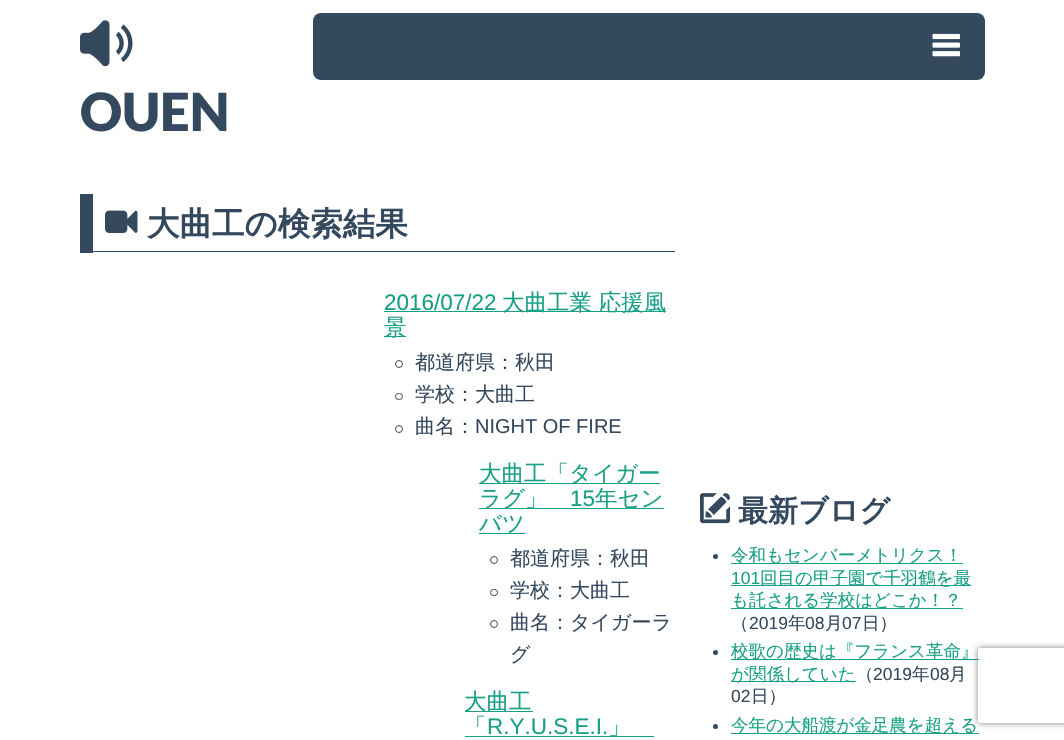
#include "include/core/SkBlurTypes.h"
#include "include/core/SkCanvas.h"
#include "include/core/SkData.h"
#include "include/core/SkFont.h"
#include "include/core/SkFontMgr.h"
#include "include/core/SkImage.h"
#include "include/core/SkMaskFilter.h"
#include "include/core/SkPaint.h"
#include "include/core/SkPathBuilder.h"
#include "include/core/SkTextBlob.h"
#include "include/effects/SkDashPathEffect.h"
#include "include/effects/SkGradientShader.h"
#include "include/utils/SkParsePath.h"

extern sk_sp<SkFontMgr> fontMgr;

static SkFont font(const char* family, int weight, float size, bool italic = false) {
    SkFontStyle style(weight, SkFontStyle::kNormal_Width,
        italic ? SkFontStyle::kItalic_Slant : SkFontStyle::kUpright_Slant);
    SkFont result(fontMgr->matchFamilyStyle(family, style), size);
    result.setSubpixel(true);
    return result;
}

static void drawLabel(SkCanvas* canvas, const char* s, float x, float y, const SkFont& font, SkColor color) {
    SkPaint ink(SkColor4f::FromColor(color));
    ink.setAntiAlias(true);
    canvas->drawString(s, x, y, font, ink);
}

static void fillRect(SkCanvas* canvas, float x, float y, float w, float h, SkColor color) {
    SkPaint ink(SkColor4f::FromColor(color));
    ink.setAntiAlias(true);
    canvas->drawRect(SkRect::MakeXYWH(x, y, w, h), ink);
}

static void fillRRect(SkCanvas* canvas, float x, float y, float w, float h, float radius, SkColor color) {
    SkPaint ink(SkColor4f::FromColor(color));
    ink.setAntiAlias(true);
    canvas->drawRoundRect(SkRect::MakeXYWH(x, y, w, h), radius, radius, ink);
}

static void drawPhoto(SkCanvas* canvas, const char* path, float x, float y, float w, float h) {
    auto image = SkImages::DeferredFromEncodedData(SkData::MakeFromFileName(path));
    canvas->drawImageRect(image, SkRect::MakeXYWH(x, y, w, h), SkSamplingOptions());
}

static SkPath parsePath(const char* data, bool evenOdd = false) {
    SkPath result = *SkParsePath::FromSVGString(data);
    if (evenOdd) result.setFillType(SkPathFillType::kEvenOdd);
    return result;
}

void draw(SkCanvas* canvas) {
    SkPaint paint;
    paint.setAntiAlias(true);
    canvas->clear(0xFFFFFFFF);
    fillRRect(canvas, 313, 13, 672, 67, 8, 0xFF34495E);
    drawPhoto(canvas, "assets/img1.png", 932, 33, 28, 24);
    drawPhoto(canvas, "assets/img2.png", 80, 20, 53, 47);
    SkFont font1 = font("Lato", 900, 52.5f);
    drawLabel(canvas, "OUEN", 80, 131, font1, 0xFF34495E);
    fillRect(canvas, 93, 251, 582, 1, 0xFF34495E);
    fillRect(canvas, 80, 194, 13, 59, 0xFF34495E);
    drawPhoto(canvas, "assets/img3.png", 105, 210, 33, 23);
    SkFont font2 = font("WenQuanYi Zen Hei", 700, 32.5f);
    drawLabel(canvas, "大曲工の検索結果", 147, 235, font2, 0xFF34495E);
    SkFont font3 = font("Liberation Sans", 400, 22.5f);
    drawLabel(canvas, "2016/07/22", 384, 310, font3, 0xFF16A085);
    fillRect(canvas, 384, 311, 282, 1, 0xFF16A085);
    SkFont font4 = font("WenQuanYi Zen Hei", 500, 22.5f);
    drawLabel(canvas, "大曲工業 応援風", 502, 310, font4, 0xFF16A085);
    fillRect(canvas, 384, 336, 22, 1, 0xFF16A085);
    drawLabel(canvas, "景", 384, 335, font4, 0xFF16A085);
    paint.setStroke(true);
    paint.setStrokeWidth(1);
    paint.setColor(0xFF34495E);
    canvas->drawCircle(399, 364, 3.5f, paint);
    SkFont font5 = font("WenQuanYi Zen Hei", 500, 20);
    drawLabel(canvas, "都道府県：秋田", 415, 369, font5, 0xFF34495E);
    canvas->drawRoundRect(SkRect::MakeXYWH(395.5f, 393.5f, 7, 6), 3, 3, paint);
    drawLabel(canvas, "学校：大曲工", 415, 401, font5, 0xFF34495E);
    canvas->drawCircle(399, 429, 3.5f, paint);
    drawLabel(canvas, "曲名：", 415, 433, font5, 0xFF34495E);
    SkFont font6 = font("Liberation Sans", 400, 20);
    drawLabel(canvas, "NIGHT OF FIRE", 475, 433, font6, 0xFF34495E);
    fillRect(canvas, 479, 483, 181, 1, 0xFF16A085);
    drawLabel(canvas, "大曲工「タイガー", 479, 481, font4, 0xFF16A085);
    fillRect(canvas, 479, 508, 185, 1, 0xFF16A085);
    drawLabel(canvas, "ラグ」", 479, 506, font4, 0xFF16A085);
    drawLabel(canvas, "15", 570, 506, font3, 0xFF16A085);
    drawLabel(canvas, "年セン", 595, 506, font4, 0xFF16A085);
    drawLabel(canvas, "バツ", 479, 531, font4, 0xFF16A085);
    fillRect(canvas, 479, 533, 46, 1, 0xFF16A085);
    canvas->drawCircle(494, 560, 3.5f, paint);
    drawLabel(canvas, "都道府県：秋田", 510, 565, font5, 0xFF34495E);
    canvas->drawRoundRect(SkRect::MakeXYWH(490.5f, 589.5f, 7, 6), 3, 3, paint);
    drawLabel(canvas, "学校：大曲工", 510, 597, font5, 0xFF34495E);
    canvas->drawCircle(494, 624, 3.5f, paint);
    drawLabel(canvas, "曲名：タイガーラ", 510, 629, font5, 0xFF34495E);
    drawLabel(canvas, "グ", 510, 661, font5, 0xFF34495E);
    fillRect(canvas, 465, 711, 68, 1, 0xFF16A085);
    drawLabel(canvas, "大曲工", 464, 709, font4, 0xFF16A085);
    drawLabel(canvas, "「", 464, 734, font4, 0xFF16A085);
    drawLabel(canvas, "R.Y.U.S.E.I.", 487, 734, font3, 0xFF16A085);
    fillRect(canvas, 465, 736, 189, 1, 0xFF16A085);
    drawLabel(canvas, "」", 608, 734, font4, 0xFF16A085);
    drawPhoto(canvas, "assets/img4.png", 700, 493, 30, 31);
    SkFont font7 = font("WenQuanYi Zen Hei", 700, 30);
    drawLabel(canvas, "最新ブログ", 738, 521, font7, 0xFF34495E);
    paint.setStroke(false);
    canvas->drawCircle(715.5f, 556.5f, 2.5f, paint);
    fillRect(canvas, 731, 563, 232, 1, 0xFF16A085);
    SkFont font8 = font("WenQuanYi Zen Hei", 500, 17.5f);
    drawLabel(canvas, "令和もセンバーメトリクス！", 731, 561, font8, 0xFF16A085);
    SkFont font9 = font("Liberation Sans", 400, 17.5f);
    drawLabel(canvas, "101", 731, 584, font9, 0xFF16A085);
    fillRect(canvas, 731, 585, 240, 1, 0xFF16A085);
    drawLabel(canvas, "回目の甲子園で千羽鶴を最", 760, 584, font8, 0xFF16A085);
    fillRect(canvas, 731, 608, 232, 1, 0xFF16A085);
    drawLabel(canvas, "も託される学校はどこか！？", 731, 606, font8, 0xFF16A085);
    drawLabel(canvas, "（", 731, 629, font8, 0xFF34495E);
    drawLabel(canvas, "2019", 749, 629, font9, 0xFF34495E);
    drawLabel(canvas, "年", 788, 629, font8, 0xFF34495E);
    drawLabel(canvas, "08", 805, 629, font9, 0xFF34495E);
    drawLabel(canvas, "月", 825, 629, font8, 0xFF34495E);
    drawLabel(canvas, "07", 842, 629, font9, 0xFF34495E);
    drawLabel(canvas, "日）", 862, 629, font8, 0xFF34495E);
    canvas->drawCircle(715.5f, 652.5f, 2.5f, paint);
    fillRect(canvas, 731, 659, 248, 1, 0xFF16A085);
    drawLabel(canvas, "校歌の歴史は『フランス革命』", 731, 657, font8, 0xFF16A085);
    fillRect(canvas, 731, 681, 125, 1, 0xFF16A085);
    drawLabel(canvas, "が関係していた", 731, 680, font8, 0xFF16A085);
    drawLabel(canvas, "（", 856, 680, font8, 0xFF34495E);
    drawLabel(canvas, "2019", 873, 680, font9, 0xFF34495E);
    drawLabel(canvas, "年", 912, 680, font8, 0xFF34495E);
    drawLabel(canvas, "08", 930, 680, font9, 0xFF34495E);
    drawLabel(canvas, "月", 949, 680, font8, 0xFF34495E);
    drawLabel(canvas, "02", 731, 702, font9, 0xFF34495E);
    drawLabel(canvas, "日）", 751, 702, font8, 0xFF34495E);
    canvas->drawCircle(715.5f, 726.5f, 2.5f, paint);
    fillRect(canvas, 731, 733, 248, 1, 0xFF16A085);
    drawLabel(canvas, "今年の大船渡が金足農を超える", 731, 731, font8, 0xFF16A085);
    canvas->save();
    canvas->clipPath(parsePath("M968 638H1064V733H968ZM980.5 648H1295.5C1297 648 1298 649 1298 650.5V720.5C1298 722 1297 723 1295.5 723H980.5C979 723 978 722 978 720.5V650.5C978 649 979 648 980.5 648Z", true), true);
    paint.setColor(0xFF808080);
    paint.setMaskFilter(SkMaskFilter::MakeBlur(kNormal_SkBlurStyle, 3));
    canvas->drawRoundRect(SkRect::MakeXYWH(978, 648, 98, 75), 2.5f, 2.5f, paint);
    paint.setMaskFilter(nullptr);
    canvas->restore();
}
